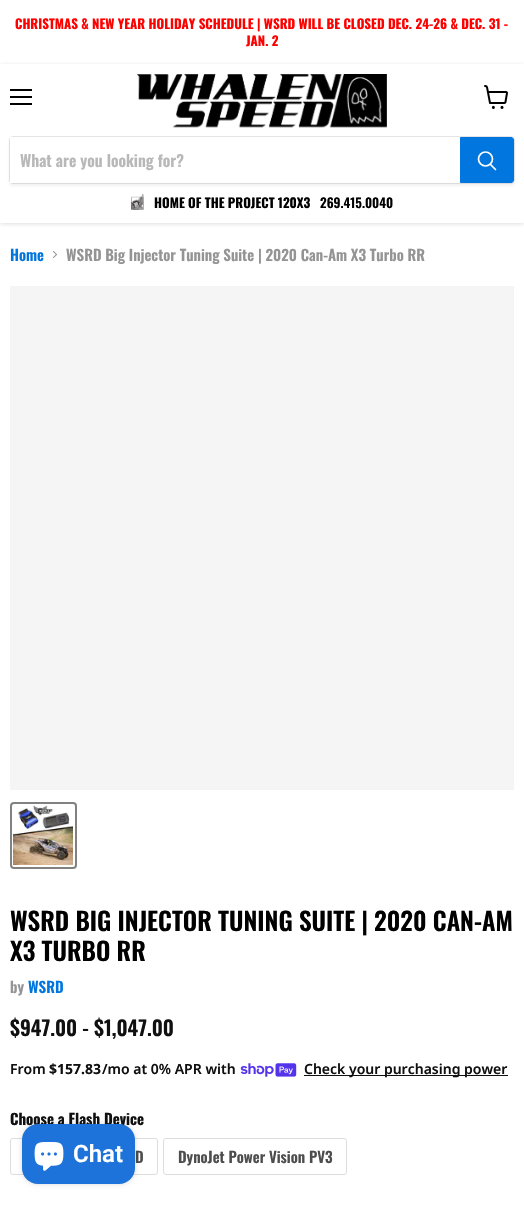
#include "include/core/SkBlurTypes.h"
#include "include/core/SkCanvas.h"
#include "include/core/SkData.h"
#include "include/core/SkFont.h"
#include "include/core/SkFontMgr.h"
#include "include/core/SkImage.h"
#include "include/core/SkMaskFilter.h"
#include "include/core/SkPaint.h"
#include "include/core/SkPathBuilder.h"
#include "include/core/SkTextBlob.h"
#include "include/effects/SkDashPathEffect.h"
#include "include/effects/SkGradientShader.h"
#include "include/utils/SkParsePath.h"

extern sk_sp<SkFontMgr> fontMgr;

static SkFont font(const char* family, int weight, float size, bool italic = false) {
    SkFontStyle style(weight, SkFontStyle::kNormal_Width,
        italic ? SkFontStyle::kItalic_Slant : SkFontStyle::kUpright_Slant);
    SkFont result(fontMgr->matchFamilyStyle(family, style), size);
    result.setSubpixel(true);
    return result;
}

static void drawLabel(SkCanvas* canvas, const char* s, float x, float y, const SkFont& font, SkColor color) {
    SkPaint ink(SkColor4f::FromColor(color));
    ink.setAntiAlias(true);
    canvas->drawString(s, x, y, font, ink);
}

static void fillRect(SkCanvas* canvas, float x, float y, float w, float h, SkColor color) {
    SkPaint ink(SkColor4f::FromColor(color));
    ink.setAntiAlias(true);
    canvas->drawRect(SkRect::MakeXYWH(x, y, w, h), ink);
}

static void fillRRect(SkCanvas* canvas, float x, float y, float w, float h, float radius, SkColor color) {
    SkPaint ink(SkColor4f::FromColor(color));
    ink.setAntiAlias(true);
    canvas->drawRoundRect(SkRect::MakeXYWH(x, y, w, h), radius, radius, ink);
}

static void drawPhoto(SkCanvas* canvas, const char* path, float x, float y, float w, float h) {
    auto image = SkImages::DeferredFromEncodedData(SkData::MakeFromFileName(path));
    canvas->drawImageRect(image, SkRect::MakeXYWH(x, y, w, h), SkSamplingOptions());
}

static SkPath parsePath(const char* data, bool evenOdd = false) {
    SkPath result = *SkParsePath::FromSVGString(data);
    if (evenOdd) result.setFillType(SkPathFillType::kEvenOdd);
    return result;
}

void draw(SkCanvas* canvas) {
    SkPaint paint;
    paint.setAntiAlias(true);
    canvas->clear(0xFFFFFFFF);
    SkFont font1 = font("Oswald", 700, 13.1f);
    drawLabel(canvas, "CHRISTMAS & NEW YEAR HOLIDAY SCHEDULE | WSRD WILL BE CLOSED DEC. 24-26 & DEC. 31 -", 15, 29, font1, 0xFFFF0000);
    drawLabel(canvas, "JAN. 2", 246, 46, font1, 0xFFFF0000);
    canvas->save();
    canvas->clipPath(parsePath("M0 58H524V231H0ZM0 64H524V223H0Z", true), true);
    paint.setColor(0x40808080);
    paint.setMaskFilter(SkMaskFilter::MakeBlur(kNormal_SkBlurStyle, 2));
    canvas->drawRect(SkRect::MakeXYWH(0, 65, 524, 159), paint);
    paint.setMaskFilter(nullptr);
    canvas->restore();
    fillRect(canvas, 10, 89, 22, 2, 0xFF000000);
    fillRect(canvas, 10, 96, 22, 2, 0xFF000000);
    fillRect(canvas, 10, 103, 22, 2, 0xFF000000);
    drawPhoto(canvas, "assets/img1.png", 484, 85, 24, 24);
    drawPhoto(canvas, "assets/img2.png", 137, 74, 250, 54);
    paint.setColor(0x1C808080);
    paint.setMaskFilter(SkMaskFilter::MakeBlur(kNormal_SkBlurStyle, 1.5f));
    canvas->drawRoundRect(SkRect::MakeXYWH(9, 138, 506, 48), 4, 4, paint);
    paint.setMaskFilter(nullptr);
    paint.setStroke(true);
    paint.setStrokeWidth(1);
    paint.setColor(0x33808080);
    canvas->drawRoundRect(SkRect::MakeXYWH(9.5f, 136.5f, 505, 47), 3.5f, 3.5f, paint);
    fillRect(canvas, 10, 137, 450, 46, 0xFFFFFFFF);
    SkFont font2 = font("Oswald", 600, 16);
    drawLabel(canvas, "What are you looking for?", 20, 167, font2, 0xFFB8B8B8);
    paint.setStroke(false);
    paint.setColor(0xFF0076DE);
    canvas->drawPath(parsePath("M460.5 137.5H511C512.5 137.5 513.5 138.5 513.5 140V180C513.5 181.5 512.5 182.5 511 182.5H460.5Z"), paint);
    paint.setStroke(true);
    canvas->drawPath(parsePath("M460.5 137.5H511C512.5 137.5 513.5 138.5 513.5 140V180C513.5 181.5 512.5 182.5 511 182.5H460.5Z"), paint);
    paint.setStrokeWidth(1.7f);
    paint.setStrokeCap(SkPaint::kRound_Cap);
    paint.setColor(0xFFFFFFFF);
    canvas->drawPath(parsePath("M495.5 169.5L490.5 164.5"), paint);
    paint.setStrokeCap(SkPaint::kButt_Cap);
    canvas->drawCircle(485.5f, 159, 7, paint);
    drawPhoto(canvas, "assets/img3.png", 131, 194, 13, 16);
    drawLabel(canvas, "HOME OF THE PROJECT 120X3", 154, 208, font1, 0xFF000000);
    SkFont font3 = font("Oswald", 600, 13.1f);
    drawLabel(canvas, "269.415.0040", 320, 208, font3, 0xFF000000);
    SkFont font4 = font("Oswald", 600, 15);
    drawLabel(canvas, "Home", 10, 261, font4, 0xFF0076DE);
    drawPhoto(canvas, "assets/img4.png", 53, 251, 4, 7);
    drawLabel(canvas, "WSRD Big Injector Tuning Suite | 2020 Can-Am X3 Turbo RR", 66, 261, font4, 0xFF949494);
    fillRect(canvas, 10, 286, 504, 504, 0xFFF5F5F5);
    paint.setStrokeWidth(2);
    paint.setColor(0xFF818181);
    canvas->drawRoundRect(SkRect::MakeXYWH(11, 803, 65, 65), 3, 3, paint);
    drawPhoto(canvas, "assets/img5.png", 13, 805, 60, 60);
    SkFont font5 = font("Oswald", 600, 25);
    drawLabel(canvas, "WSRD BIG INJECTOR TUNING SUITE | 2020 CAN-AM", 10, 931, font5, 0xFF000000);
    drawLabel(canvas, "X3 TURBO RR", 10, 961, font5, 0xFF000000);
    drawLabel(canvas, "by", 10, 993, font4, 0xFF949494);
    drawLabel(canvas, "WSRD", 28, 993, font4, 0xFF0076DE);
    SkFont font6 = font("Oswald", 600, 20.5f);
    drawLabel(canvas, "$947.00 - $1,047.00", 10, 1036, font6, 0xFF101010);
    SkFont font7 = font("Noto Sans", 600, 14);
    drawLabel(canvas, "From", 10, 1074, font7, 0xFF101010);
    SkFont font8 = font("Noto Sans", 700, 14);
    drawLabel(canvas, "$157.83", 49, 1074, font8, 0xFF101010);
    drawLabel(canvas, "/mo at 0% APR with", 102, 1074, font7, 0xFF101010);
    drawPhoto(canvas, "assets/img6.png", 240, 1063, 57, 14);
    fillRect(canvas, 304, 1075, 204, 1, 0xFF101010);
    drawLabel(canvas, "Check your purchasing power", 304, 1074, font7, 0xFF101010);
    SkFont font9 = font("Oswald", 700, 15);
    drawLabel(canvas, "Choose a Flash Device", 10, 1125, font9, 0xFF101010);
    paint.setStrokeWidth(1);
    paint.setColor(0xFFDDDDDD);
    canvas->drawRoundRect(SkRect::MakeXYWH(10.5f, 1138.5f, 147, 36), 2.5f, 2.5f, paint);
    drawLabel(canvas, "D", 135, 1163, font4, 0xFF4D4D4D);
    canvas->drawRoundRect(SkRect::MakeXYWH(163.5f, 1138.5f, 183, 36), 2.5f, 2.5f, paint);
    drawLabel(canvas, "DynoJet Power Vision PV3", 178, 1163, font4, 0xFF4D4D4D);
    paint.setStroke(false);
    paint.setColor(0x26000000);
    paint.setMaskFilter(SkMaskFilter::MakeBlur(kNormal_SkBlurStyle, 2.5f));
    canvas->drawRoundRect(SkRect::MakeXYWH(22, 1124, 113, 60), 16, 16, paint);
    paint.setMaskFilter(nullptr);
    fillRRect(canvas, 22, 1124, 113, 60, 16, 0xFF1D73DA);
    drawPhoto(canvas, "assets/img7.png", 34, 1142, 30, 29);
    SkFont font10 = font("Roboto", 600, 24);
    drawLabel(canvas, "Chat", 73, 1162, font10, 0xFFFFFFFF);
}
